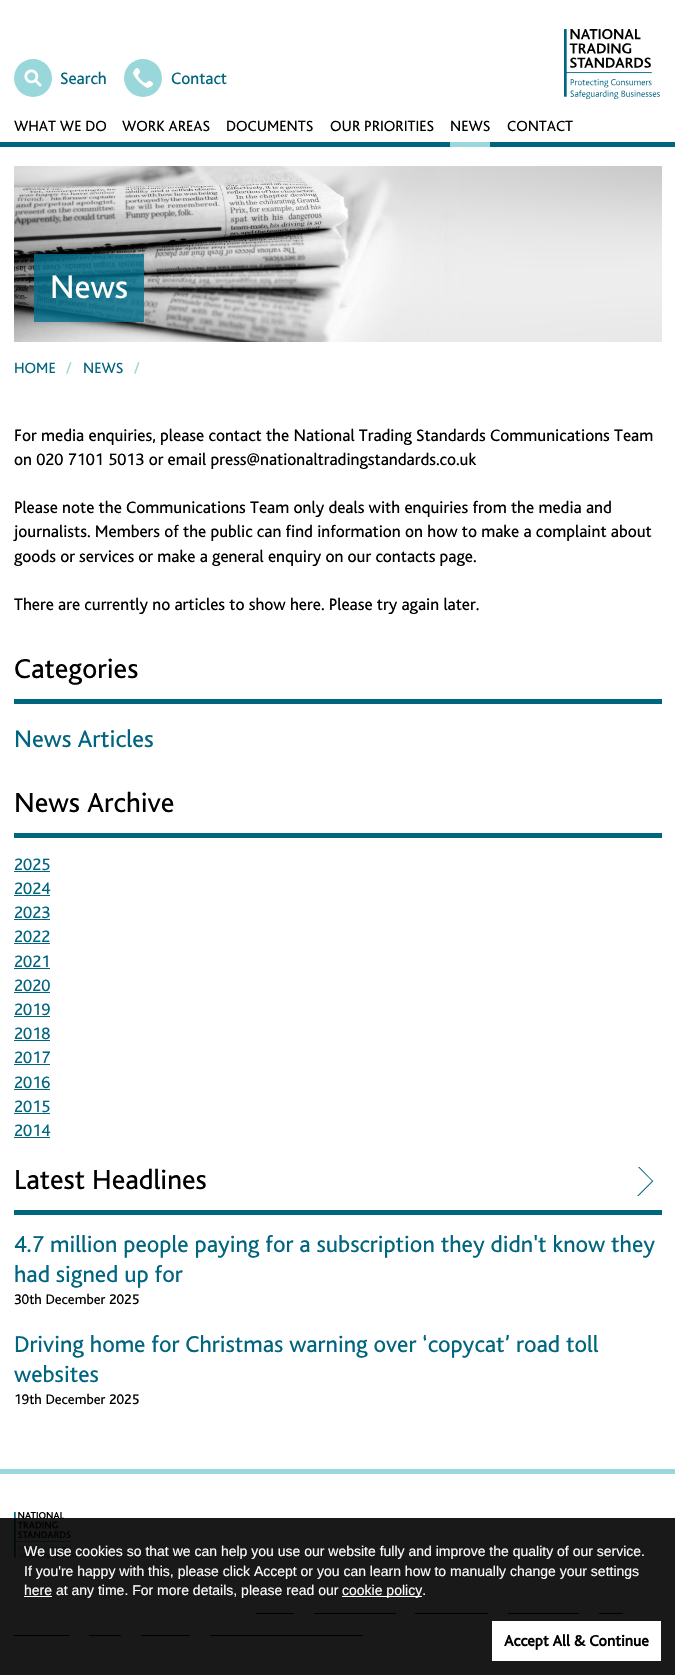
#include "include/core/SkBlurTypes.h"
#include "include/core/SkCanvas.h"
#include "include/core/SkData.h"
#include "include/core/SkFont.h"
#include "include/core/SkFontMgr.h"
#include "include/core/SkImage.h"
#include "include/core/SkMaskFilter.h"
#include "include/core/SkPaint.h"
#include "include/core/SkPathBuilder.h"
#include "include/core/SkTextBlob.h"
#include "include/effects/SkDashPathEffect.h"
#include "include/effects/SkGradientShader.h"
#include "include/utils/SkParsePath.h"

extern sk_sp<SkFontMgr> fontMgr;

static SkFont font(const char* family, int weight, float size, bool italic = false) {
    SkFontStyle style(weight, SkFontStyle::kNormal_Width,
        italic ? SkFontStyle::kItalic_Slant : SkFontStyle::kUpright_Slant);
    SkFont result(fontMgr->matchFamilyStyle(family, style), size);
    result.setSubpixel(true);
    return result;
}

static void drawLabel(SkCanvas* canvas, const char* s, float x, float y, const SkFont& font, SkColor color) {
    SkPaint ink(SkColor4f::FromColor(color));
    ink.setAntiAlias(true);
    canvas->drawString(s, x, y, font, ink);
}

static void fillRect(SkCanvas* canvas, float x, float y, float w, float h, SkColor color) {
    SkPaint ink(SkColor4f::FromColor(color));
    ink.setAntiAlias(true);
    canvas->drawRect(SkRect::MakeXYWH(x, y, w, h), ink);
}

static void drawPhoto(SkCanvas* canvas, const char* path, float x, float y, float w, float h) {
    auto image = SkImages::DeferredFromEncodedData(SkData::MakeFromFileName(path));
    canvas->drawImageRect(image, SkRect::MakeXYWH(x, y, w, h), SkSamplingOptions());
}

static SkPath parsePath(const char* data, bool evenOdd = false) {
    SkPath result = *SkParsePath::FromSVGString(data);
    if (evenOdd) result.setFillType(SkPathFillType::kEvenOdd);
    return result;
}

void draw(SkCanvas* canvas) {
    SkPaint paint;
    paint.setAntiAlias(true);
    canvas->clear(0xFFFFFFFF);
    paint.setColor(0xFF99D7DA);
    canvas->drawCircle(33, 78, 19, paint);
    drawPhoto(canvas, "assets/img1.png", 24, 69, 18, 18);
    SkFont font1 = font("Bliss", 400, 17.3f);
    drawLabel(canvas, "Search", 60, 84, font1, 0xFF00657F);
    canvas->drawCircle(143, 78, 19, paint);
    drawPhoto(canvas, "assets/img2.png", 133, 68, 20, 20);
    drawLabel(canvas, "Contact", 171, 84, font1, 0xFF00657F);
    drawPhoto(canvas, "assets/img3.png", 564, 29, 96, 70);
    fillRect(canvas, 0, 142, 675, 5, 0xFF00657F);
    SkFont font2 = font("Bliss", 400, 15.5f);
    drawLabel(canvas, "WHAT WE DO", 14, 131, font2, 0xFF000000);
    drawLabel(canvas, "WORK AREAS", 122, 131, font2, 0xFF000000);
    drawLabel(canvas, "DOCUMENTS", 226, 131, font2, 0xFF000000);
    drawLabel(canvas, "OUR PRIORITIES", 330, 131, font2, 0xFF000000);
    fillRect(canvas, 450, 142, 40, 5, 0xFF99D7DA);
    drawLabel(canvas, "NEWS", 450, 131, font2, 0xFF000000);
    drawLabel(canvas, "CONTACT", 507, 131, font2, 0xFF000000);
    drawPhoto(canvas, "assets/img4.png", 14, 166, 648, 176);
    fillRect(canvas, 34, 254, 110, 68, 0xCC00718F);
    SkFont font3 = font("Bliss", 400, 34);
    drawLabel(canvas, "News", 50, 298, font3, 0xFFFFFFFF);
    drawLabel(canvas, "HOME", 14, 373, font2, 0xFF00657F);
    drawLabel(canvas, "/", 66, 373, font2, 0xFF99D7DA);
    drawLabel(canvas, "NEWS", 83, 373, font2, 0xFF00657F);
    drawLabel(canvas, "/", 134, 373, font2, 0xFF99D7DA);
    drawLabel(canvas, "For media enquiries, please contact the National Trading Standards Communications Team", 14, 441, font1, 0xFF000000);
    drawLabel(canvas, "on 020 7101 5013 or email press@nationaltradingstandards.co.uk", 14, 465, font1, 0xFF000000);
    drawLabel(canvas, "Please note the Communications Team only deals with enquiries from the media and", 14, 513, font1, 0xFF000000);
    drawLabel(canvas, "journalists. Members of the public can find information on how to make a complaint about", 14, 537, font1, 0xFF000000);
    drawLabel(canvas, "goods or services or make a general enquiry on our contacts page.", 14, 562, font1, 0xFF000000);
    drawLabel(canvas, "There are currently no articles to show here. Please try again later.", 14, 610, font1, 0xFF000000);
    fillRect(canvas, 14, 699, 648, 5, 0xFF00657F);
    SkFont font4 = font("Bliss", 400, 28.75f);
    drawLabel(canvas, "Categories", 14, 678, font4, 0xFF000000);
    SkFont font5 = font("Bliss", 400, 25);
    drawLabel(canvas, "News Articles", 14, 747, font5, 0xFF00657F);
    fillRect(canvas, 14, 833, 648, 5, 0xFF00657F);
    drawLabel(canvas, "News Archive", 14, 812, font4, 0xFF000000);
    drawLabel(canvas, "2025", 14, 870, font1, 0xFF00657F);
    fillRect(canvas, 14, 871, 36, 1, 0xFF00657F);
    drawLabel(canvas, "2024", 14, 894, font1, 0xFF00657F);
    fillRect(canvas, 14, 895, 36, 1, 0xFF00657F);
    drawLabel(canvas, "2023", 14, 918, font1, 0xFF00657F);
    fillRect(canvas, 14, 919, 36, 1, 0xFF00657F);
    drawLabel(canvas, "2022", 14, 942, font1, 0xFF00657F);
    fillRect(canvas, 14, 943, 36, 1, 0xFF00657F);
    drawLabel(canvas, "2021", 14, 967, font1, 0xFF00657F);
    fillRect(canvas, 14, 968, 36, 1, 0xFF00657F);
    drawLabel(canvas, "2020", 14, 991, font1, 0xFF00657F);
    fillRect(canvas, 14, 992, 36, 1, 0xFF00657F);
    drawLabel(canvas, "2019", 14, 1015, font1, 0xFF00657F);
    fillRect(canvas, 14, 1016, 36, 1, 0xFF00657F);
    drawLabel(canvas, "2018", 14, 1039, font1, 0xFF00657F);
    fillRect(canvas, 14, 1040, 36, 1, 0xFF00657F);
    drawLabel(canvas, "2017", 14, 1063, font1, 0xFF00657F);
    fillRect(canvas, 14, 1064, 36, 1, 0xFF00657F);
    drawLabel(canvas, "2016", 14, 1088, font1, 0xFF00657F);
    fillRect(canvas, 14, 1089, 36, 1, 0xFF00657F);
    drawLabel(canvas, "2015", 14, 1112, font1, 0xFF00657F);
    fillRect(canvas, 14, 1113, 36, 1, 0xFF00657F);
    drawLabel(canvas, "2014", 14, 1136, font1, 0xFF00657F);
    fillRect(canvas, 14, 1137, 36, 1, 0xFF00657F);
    fillRect(canvas, 14, 1210, 648, 5, 0xFF00657F);
    canvas->save();
    canvas->clipRect(SkRect::MakeXYWH(626, 1167, 36, 29));
    paint.setColor(0xFF00657F);
    canvas->drawPath(parsePath("M652.5 1180.5L635.5 1163L634.5 1163.5L652 1181L634.5 1198.5L635.5 1199L653.5 1181Z"), paint);
    canvas->restore();
    drawLabel(canvas, "Latest Headlines", 14, 1189, font4, 0xFF000000);
    SkFont font6 = font("Bliss", 400, 24);
    drawLabel(canvas, "4.7 million people paying for a subscription they didn't know they", 14, 1252, font6, 0xFF00657F);
    drawLabel(canvas, "had signed up for", 14, 1282, font6, 0xFF00657F);
    SkFont font7 = font("Bliss", 400, 14.5f);
    drawLabel(canvas, "30th December 2025", 14, 1304, font7, 0xFF000000);
    drawLabel(canvas, "Driving home for Christmas warning over ‘copycat’ road toll", 14, 1352, font6, 0xFF00657F);
    drawLabel(canvas, "websites", 14, 1382, font6, 0xFF00657F);
    drawLabel(canvas, "19th December 2025", 14, 1404, font7, 0xFF000000);
    fillRect(canvas, 0, 1469, 675, 5, 0xFF99D7DA);
    drawPhoto(canvas, "assets/img5.png", 14, 1512, 63, 47);
    fillRect(canvas, 256, 1613, 38, 1, 0xFF000000);
    fillRect(canvas, 314, 1613, 82, 1, 0xFF000000);
    fillRect(canvas, 415, 1613, 73, 1, 0xFF000000);
    fillRect(canvas, 508, 1613, 71, 1, 0xFF000000);
    fillRect(canvas, 599, 1613, 24, 1, 0xFF000000);
    fillRect(canvas, 14, 1635, 55, 1, 0xFF000000);
    fillRect(canvas, 89, 1635, 32, 1, 0xFF000000);
    fillRect(canvas, 141, 1635, 49, 1, 0xFF000000);
    fillRect(canvas, 210, 1635, 153, 1, 0xFF000000);
    fillRect(canvas, 0, 1518, 675, 157, 0xE6000000);
    SkFont font8 = font("Liberation Sans", 400, 14);
    drawLabel(canvas, "We use cookies so that we can help you use our website fully and improve the quality of our service.", 24, 1556, font8, 0xFFFFFFFF);
    drawLabel(canvas, "If you're happy with this, please click Accept or you can learn how to manually change your settings", 24, 1576, font8, 0xFFFFFFFF);
    fillRect(canvas, 24, 1596, 28, 1, 0xFFFFFFFF);
    drawLabel(canvas, "here at any time. For more details, please read our", 24, 1595, font8, 0xFFFFFFFF);
    fillRect(canvas, 342, 1596, 80, 1, 0xFFFFFFFF);
    drawLabel(canvas, "cookie policy.", 342, 1595, font8, 0xFFFFFFFF);
    fillRect(canvas, 492, 1621, 169, 40, 0xFFFFFFFF);
    SkFont font9 = font("Bliss", 700, 16);
    drawLabel(canvas, "Accept All & Continue", 504, 1646, font9, 0xFF000000);
}
